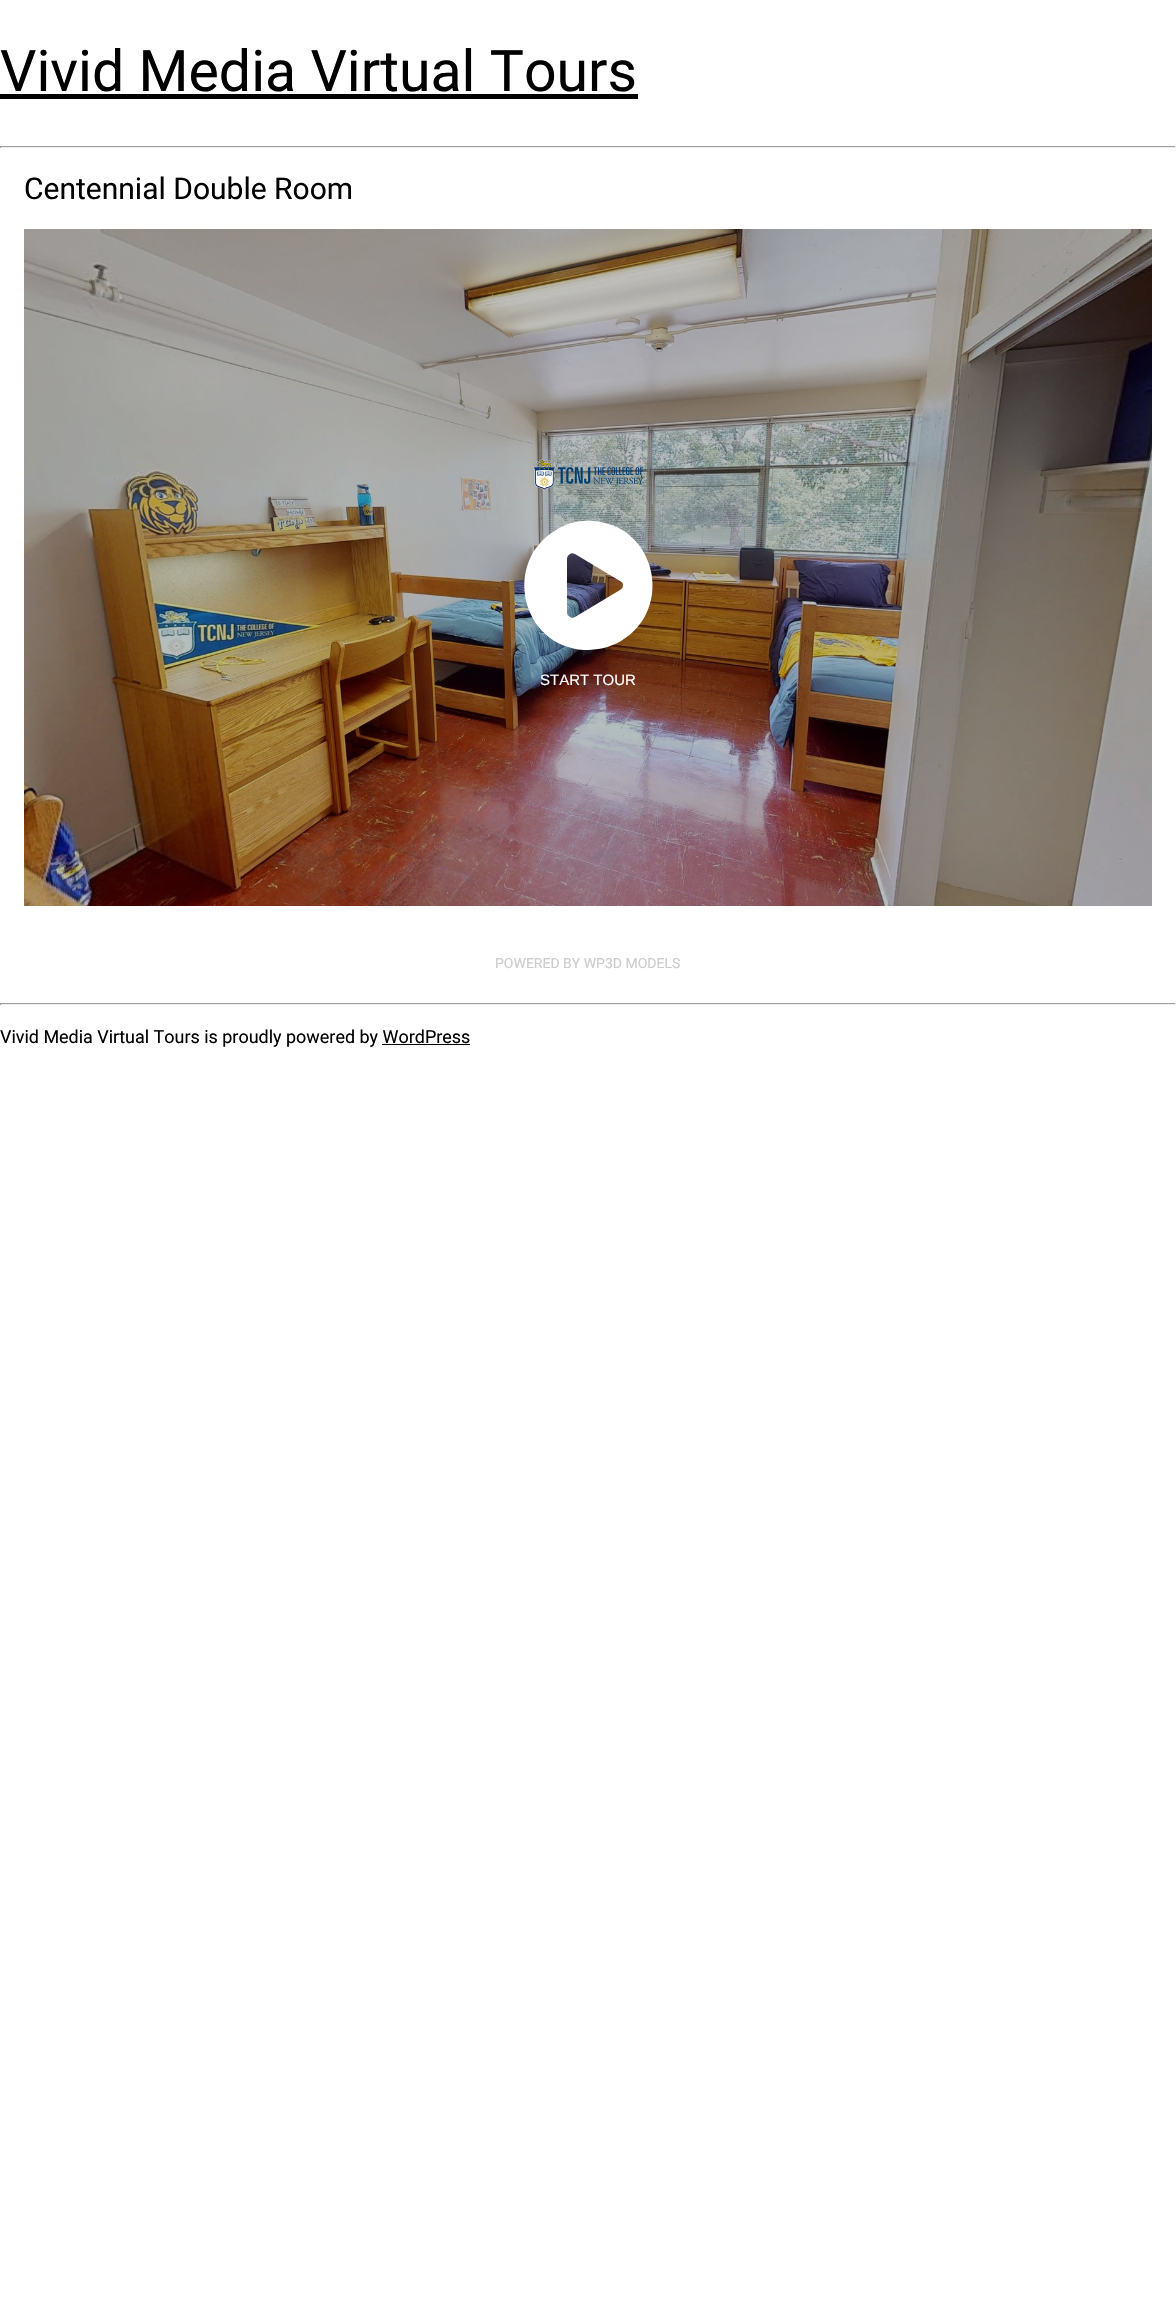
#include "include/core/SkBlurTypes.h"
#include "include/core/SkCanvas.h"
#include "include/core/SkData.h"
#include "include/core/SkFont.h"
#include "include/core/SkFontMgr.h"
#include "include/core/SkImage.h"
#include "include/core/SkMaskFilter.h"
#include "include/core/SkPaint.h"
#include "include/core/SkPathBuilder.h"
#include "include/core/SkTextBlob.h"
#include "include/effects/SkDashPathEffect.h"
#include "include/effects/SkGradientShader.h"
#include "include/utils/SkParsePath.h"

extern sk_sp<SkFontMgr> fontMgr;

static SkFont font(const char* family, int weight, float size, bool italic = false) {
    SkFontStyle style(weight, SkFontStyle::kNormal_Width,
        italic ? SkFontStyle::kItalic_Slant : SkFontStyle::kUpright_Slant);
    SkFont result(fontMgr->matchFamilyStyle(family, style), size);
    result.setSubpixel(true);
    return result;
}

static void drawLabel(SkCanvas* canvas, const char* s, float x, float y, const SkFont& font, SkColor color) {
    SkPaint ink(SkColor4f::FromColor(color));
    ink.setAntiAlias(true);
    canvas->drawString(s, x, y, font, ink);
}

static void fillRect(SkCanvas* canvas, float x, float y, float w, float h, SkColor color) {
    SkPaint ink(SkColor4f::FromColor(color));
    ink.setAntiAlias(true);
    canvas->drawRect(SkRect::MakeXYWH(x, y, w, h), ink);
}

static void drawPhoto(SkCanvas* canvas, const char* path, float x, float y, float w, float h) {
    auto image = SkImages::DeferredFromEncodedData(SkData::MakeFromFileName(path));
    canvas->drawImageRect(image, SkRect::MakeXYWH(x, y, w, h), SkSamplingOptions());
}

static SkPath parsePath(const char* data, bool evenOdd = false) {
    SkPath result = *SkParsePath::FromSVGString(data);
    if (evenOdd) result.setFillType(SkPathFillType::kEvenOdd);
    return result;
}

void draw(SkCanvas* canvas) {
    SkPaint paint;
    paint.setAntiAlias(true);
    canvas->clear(0xFFFFFFFF);
    SkFont font1 = font("Roboto", 400, 57.25f);
    drawLabel(canvas, "Vivid Media Virtual Tours", 0, 91, font1, 0xFF000000);
    fillRect(canvas, 0, 94, 638, 5, 0xFF000000);
    fillRect(canvas, 0, 146, 1176, 1, 0xFF9F9F9F);
    fillRect(canvas, 1175, 146, 1, 2, 0xFFEEEEEE);
    fillRect(canvas, 0, 147, 1176, 1, 0xFFEEEEEE);
    fillRect(canvas, 0, 146, 1, 2, 0xFF9F9F9F);
    SkFont font2 = font("Roboto", 400, 30);
    drawLabel(canvas, "Centennial Double Room", 24, 199, font2, 0xFF000000);
    drawPhoto(canvas, "assets/img1.png", 24, 229, 1128, 677);
    drawPhoto(canvas, "assets/img2.png", 532, 459, 112, 32);
    paint.setColor(0xFFFFFFFF);
    canvas->drawPath(parsePath("M556 530C567 523 580 520 593 521C656 525 675 609 621 641C609 648 597 650 584 650C521 646 502 562 556 530ZM620 590C622 589 623 587 623 585C623 583 622 582 620 581L575 554C573 553 571 553 570 554C568 555 567 557 567 559V612C567 614 568 616 570 617L572 618L575 617Z"), paint);
    SkFont font3 = font("Liberation Sans", 400, 15);
    drawLabel(canvas, "START TOUR", 540, 685, font3, 0xFFFFFFFF);
    SkFont font4 = font("Roboto", 400, 14);
    drawLabel(canvas, "POWERED BY WP3D MODELS", 495, 968, font4, 0xFFCCCCCC);
    fillRect(canvas, 0, 1003, 1176, 1, 0xFF9F9F9F);
    fillRect(canvas, 1175, 1003, 1, 2, 0xFFEEEEEE);
    fillRect(canvas, 0, 1004, 1176, 1, 0xFFEEEEEE);
    fillRect(canvas, 0, 1003, 1, 2, 0xFF9F9F9F);
    SkFont font5 = font("Roboto", 400, 17.95f);
    drawLabel(canvas, "Vivid Media Virtual Tours is proudly powered by WordPress", 0, 1043, font5, 0xFF000000);
    fillRect(canvas, 382, 1044, 88, 1, 0xFF000000);
}
